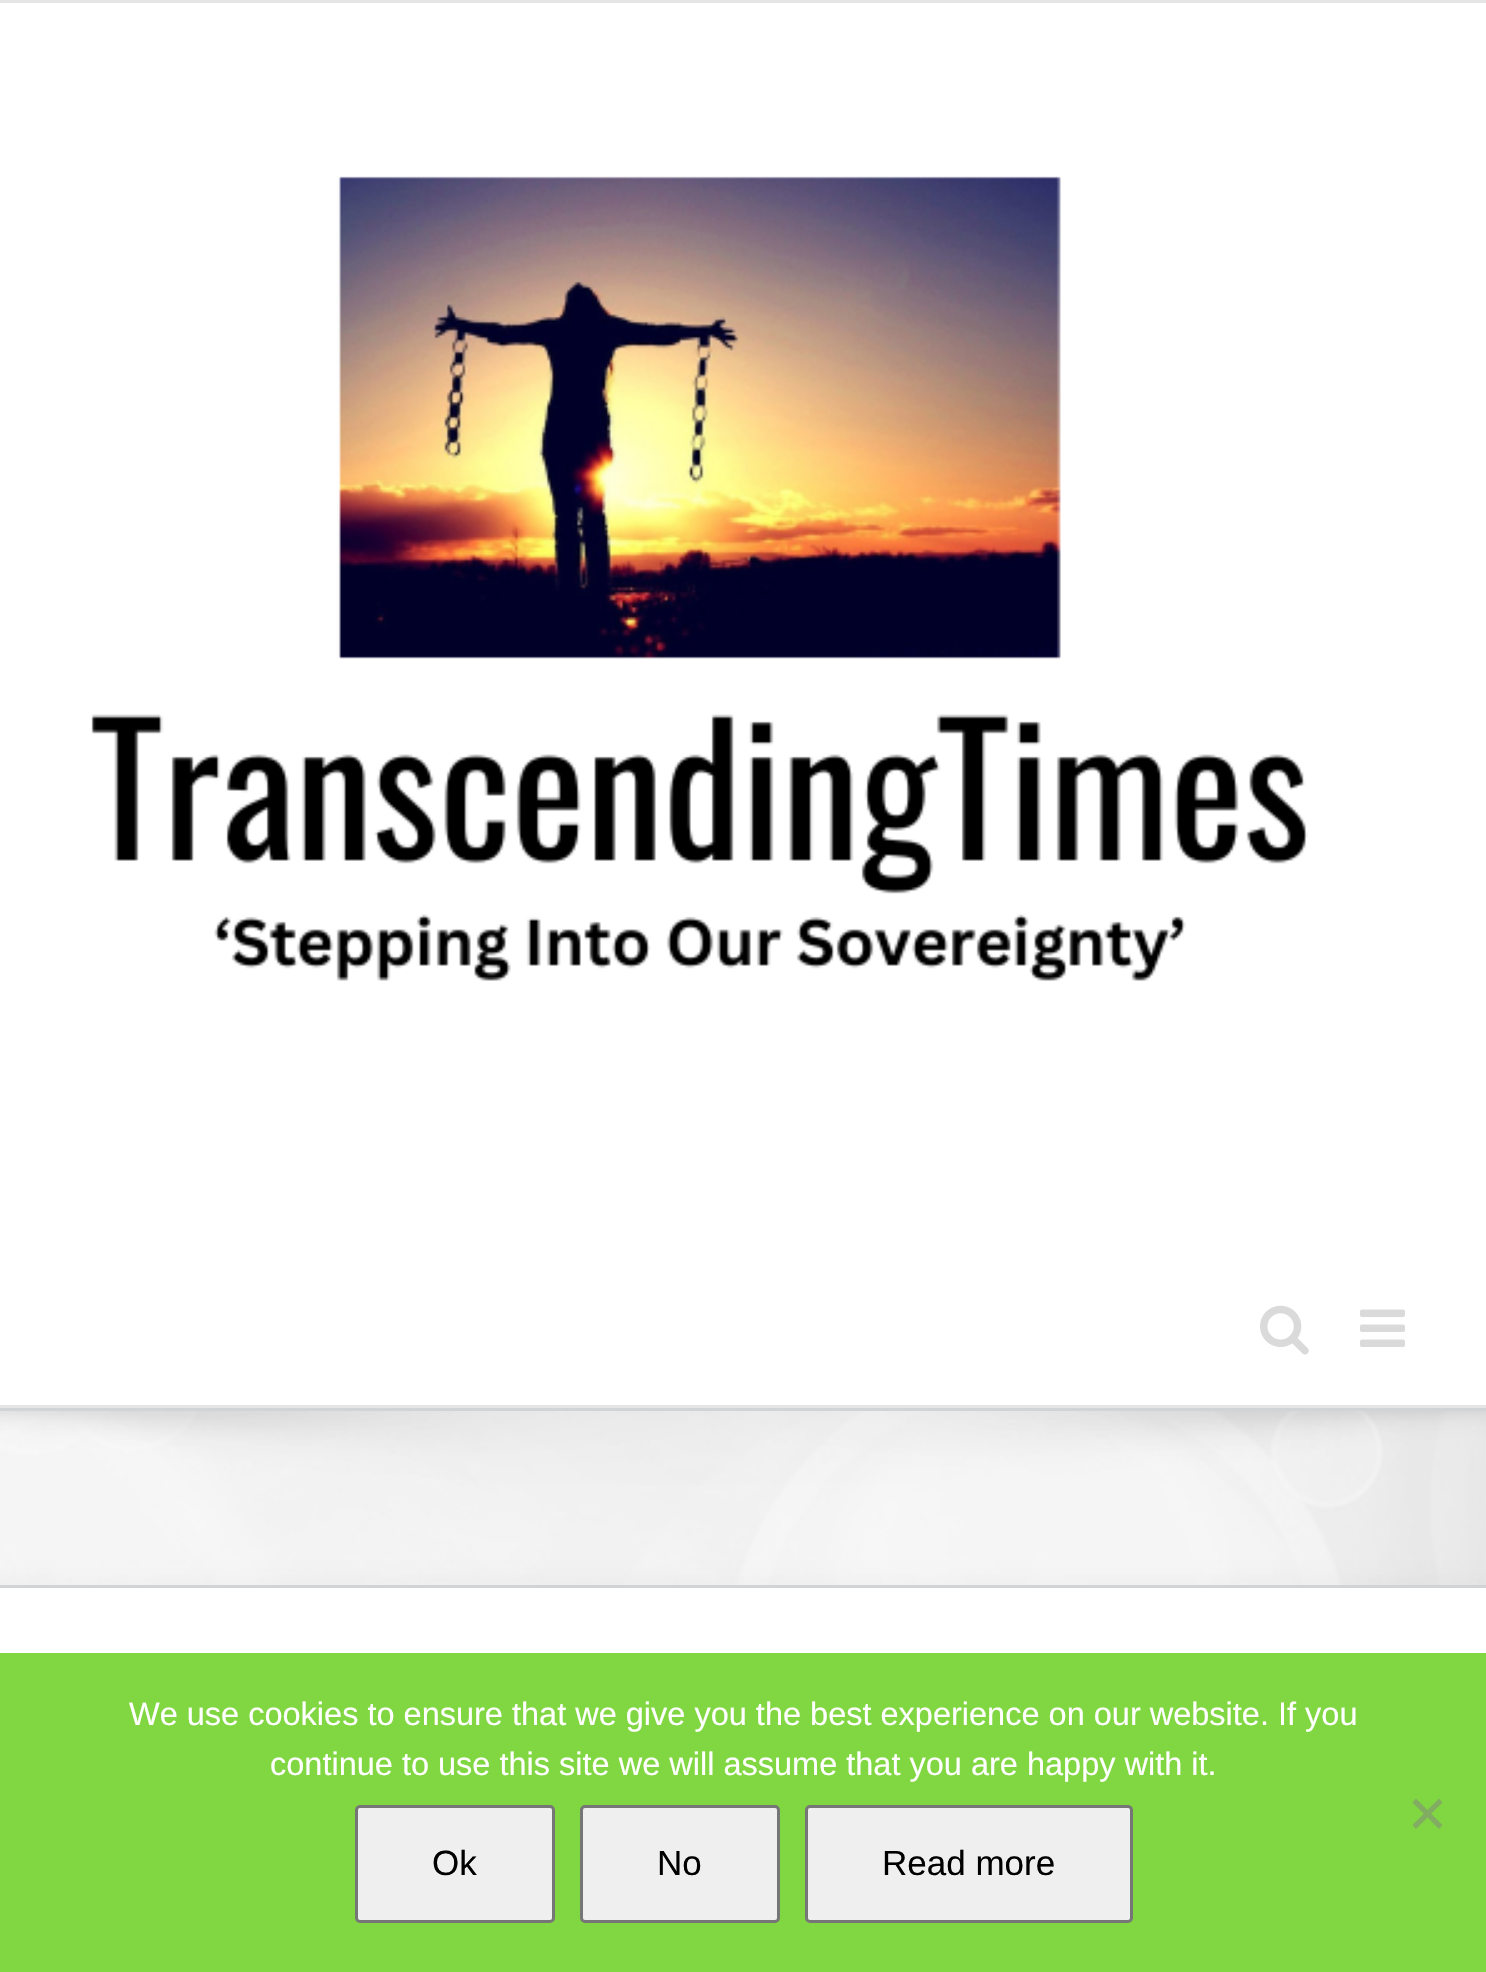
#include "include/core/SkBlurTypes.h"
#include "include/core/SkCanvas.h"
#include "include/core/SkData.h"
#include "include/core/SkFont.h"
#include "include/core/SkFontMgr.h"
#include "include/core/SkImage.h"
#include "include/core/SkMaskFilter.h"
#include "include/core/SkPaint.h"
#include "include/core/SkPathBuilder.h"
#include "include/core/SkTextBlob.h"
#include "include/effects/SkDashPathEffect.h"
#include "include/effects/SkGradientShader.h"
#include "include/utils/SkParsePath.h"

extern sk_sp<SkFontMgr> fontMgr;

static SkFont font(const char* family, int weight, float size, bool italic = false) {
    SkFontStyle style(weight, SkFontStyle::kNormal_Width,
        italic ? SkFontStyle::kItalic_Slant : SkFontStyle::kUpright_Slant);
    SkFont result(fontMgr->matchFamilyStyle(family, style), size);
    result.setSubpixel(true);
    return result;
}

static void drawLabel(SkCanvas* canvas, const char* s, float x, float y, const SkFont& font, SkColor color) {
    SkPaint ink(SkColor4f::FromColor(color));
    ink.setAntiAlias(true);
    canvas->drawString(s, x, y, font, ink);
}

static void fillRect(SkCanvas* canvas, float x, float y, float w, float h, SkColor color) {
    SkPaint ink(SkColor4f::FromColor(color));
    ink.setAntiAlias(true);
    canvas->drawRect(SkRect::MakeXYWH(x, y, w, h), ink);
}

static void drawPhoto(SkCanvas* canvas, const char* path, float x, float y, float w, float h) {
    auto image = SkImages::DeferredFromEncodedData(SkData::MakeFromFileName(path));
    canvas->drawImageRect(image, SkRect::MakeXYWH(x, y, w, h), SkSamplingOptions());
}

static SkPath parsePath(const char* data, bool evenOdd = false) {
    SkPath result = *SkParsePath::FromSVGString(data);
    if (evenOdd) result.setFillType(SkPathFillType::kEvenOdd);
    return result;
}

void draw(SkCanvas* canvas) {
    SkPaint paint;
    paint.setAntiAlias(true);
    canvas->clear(0xFFFFFFFF);
    fillRect(canvas, 0, 0, 1486, 3, 0xFFE5E5E5);
    fillRect(canvas, 0, 1405, 1486, 3, 0xFFE5E5E5);
    drawPhoto(canvas, "assets/img1.png", 91, 176, 1217, 805);
    drawPhoto(canvas, "assets/img2.png", 1260, 1305, 49, 50);
    drawPhoto(canvas, "assets/img3.png", 1360, 1309, 45, 38);
    fillRect(canvas, 0, 1411, 1486, 174, 0xFFF6F6F6);
    drawPhoto(canvas, "assets/img4.png", 0, 1411, 1486, 174);
    fillRect(canvas, 0, 1408, 1486, 3, 0xFFD2D3D4);
    fillRect(canvas, 0, 1585, 1486, 3, 0xFFD2D3D4);
    fillRect(canvas, 0, 1653, 1486, 319, 0xFF81D742);
    SkFont font1 = font("Liberation Sans", 400, 32.5f);
    drawLabel(canvas, "We use cookies to ensure that we give you the best experience on our website. If you", 129, 1725, font1, 0xFFFFFFFF);
    drawLabel(canvas, "continue to use this site we will assume that you are happy with it.", 270, 1775, font1, 0xFFFFFFFF);
    paint.setColor(0xFF81AC61);
    canvas->drawPath(parsePath("M1439 1798.5L1442.5 1802.5L1416 1829L1412.5 1825Z"), paint);
    canvas->drawPath(parsePath("M1412.5 1802.5L1416 1798.5L1442.5 1825L1439 1829Z"), paint);
    paint.setColor(0xFFEFEFEF);
    canvas->drawRoundRect(SkRect::MakeXYWH(356.5f, 1806.5f, 197, 115), 3.5f, 3.5f, paint);
    paint.setStroke(true);
    paint.setStrokeWidth(3);
    paint.setColor(0xFF767676);
    canvas->drawRoundRect(SkRect::MakeXYWH(356.5f, 1806.5f, 197, 115), 3.5f, 3.5f, paint);
    SkFont font2 = font("Liberation Sans", 400, 35);
    drawLabel(canvas, "Ok", 432, 1875, font2, 0xFF000000);
    paint.setStroke(false);
    paint.setColor(0xFFEFEFEF);
    canvas->drawRoundRect(SkRect::MakeXYWH(581.5f, 1806.5f, 197, 115), 3.5f, 3.5f, paint);
    paint.setStroke(true);
    paint.setColor(0xFF767676);
    canvas->drawRoundRect(SkRect::MakeXYWH(581.5f, 1806.5f, 197, 115), 3.5f, 3.5f, paint);
    drawLabel(canvas, "No", 657, 1875, font2, 0xFF000000);
    paint.setStroke(false);
    paint.setColor(0xFFEFEFEF);
    canvas->drawRoundRect(SkRect::MakeXYWH(806.5f, 1806.5f, 325, 115), 3.5f, 3.5f, paint);
    paint.setStroke(true);
    paint.setColor(0xFF767676);
    canvas->drawRoundRect(SkRect::MakeXYWH(806.5f, 1806.5f, 325, 115), 3.5f, 3.5f, paint);
    drawLabel(canvas, "Read more", 882, 1875, font2, 0xFF000000);
}
